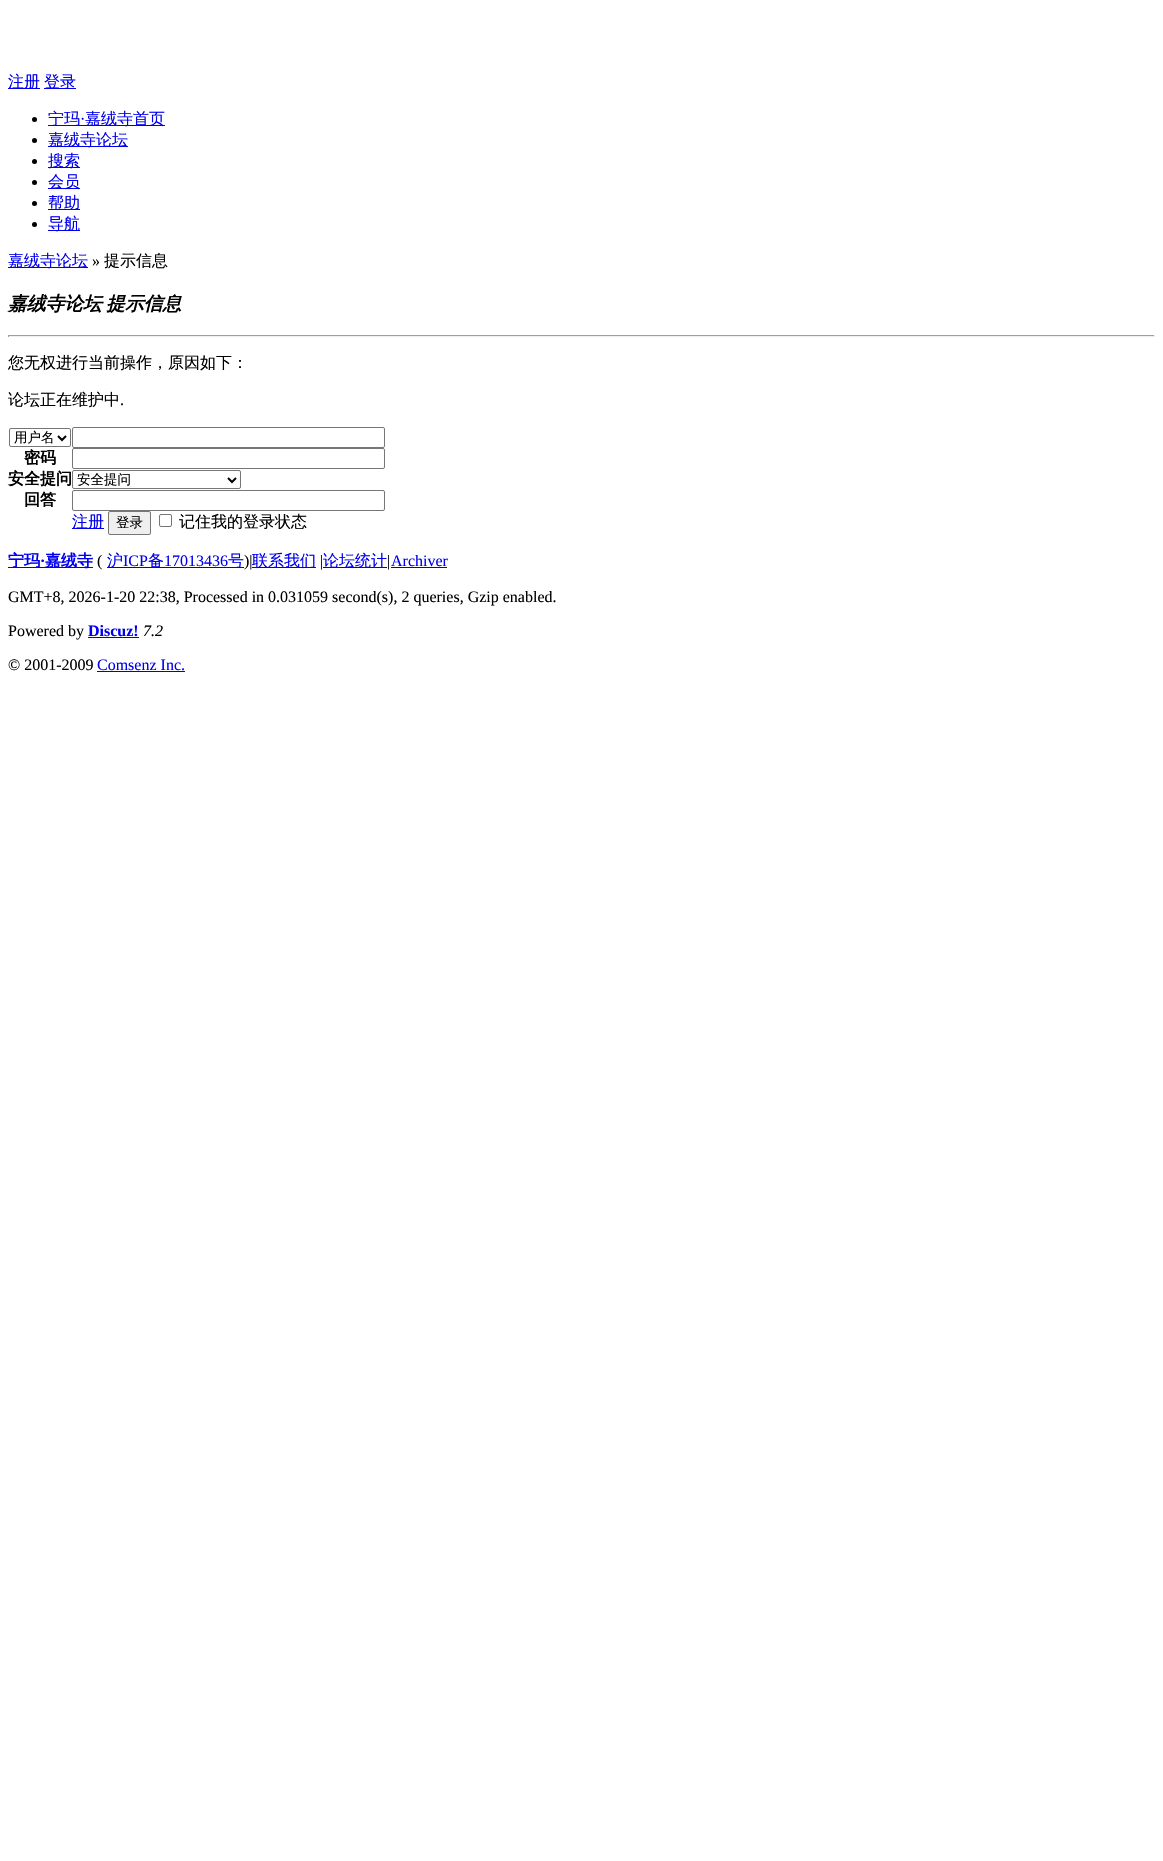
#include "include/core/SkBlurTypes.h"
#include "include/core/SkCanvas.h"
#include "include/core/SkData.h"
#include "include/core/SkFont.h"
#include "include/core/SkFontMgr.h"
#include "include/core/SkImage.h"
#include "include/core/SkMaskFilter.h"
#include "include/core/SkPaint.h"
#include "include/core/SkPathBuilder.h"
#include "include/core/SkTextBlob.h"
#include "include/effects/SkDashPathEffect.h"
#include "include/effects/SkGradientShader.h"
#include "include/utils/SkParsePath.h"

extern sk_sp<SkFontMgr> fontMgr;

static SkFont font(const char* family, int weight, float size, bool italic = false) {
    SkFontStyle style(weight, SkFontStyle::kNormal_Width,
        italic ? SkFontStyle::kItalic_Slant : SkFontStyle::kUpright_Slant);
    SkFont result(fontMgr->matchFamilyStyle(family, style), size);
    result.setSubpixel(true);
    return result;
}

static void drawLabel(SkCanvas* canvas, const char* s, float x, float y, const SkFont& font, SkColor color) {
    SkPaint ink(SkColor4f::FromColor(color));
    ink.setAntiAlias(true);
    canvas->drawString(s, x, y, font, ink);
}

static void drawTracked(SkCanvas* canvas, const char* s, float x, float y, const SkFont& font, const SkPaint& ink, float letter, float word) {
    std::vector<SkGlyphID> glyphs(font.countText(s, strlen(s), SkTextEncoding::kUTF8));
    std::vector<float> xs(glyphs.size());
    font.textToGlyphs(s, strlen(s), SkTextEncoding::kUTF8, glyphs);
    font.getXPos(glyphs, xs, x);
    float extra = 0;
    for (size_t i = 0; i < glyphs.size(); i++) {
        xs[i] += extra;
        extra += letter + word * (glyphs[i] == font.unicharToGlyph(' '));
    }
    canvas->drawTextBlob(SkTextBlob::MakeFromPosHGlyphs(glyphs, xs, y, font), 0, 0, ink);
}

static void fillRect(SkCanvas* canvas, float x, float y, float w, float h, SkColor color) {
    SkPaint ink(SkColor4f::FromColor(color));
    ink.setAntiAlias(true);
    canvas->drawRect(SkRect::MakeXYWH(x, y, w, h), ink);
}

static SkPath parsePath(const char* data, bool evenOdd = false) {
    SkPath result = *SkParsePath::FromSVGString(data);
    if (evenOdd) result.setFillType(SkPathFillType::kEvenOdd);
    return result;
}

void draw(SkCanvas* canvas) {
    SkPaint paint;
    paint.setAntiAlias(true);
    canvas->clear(0xFFFFFFFF);
    fillRect(canvas, 8, 88, 32, 1, 0xFF0000EE);
    SkFont font1 = font("WenQuanYi Zen Hei", 500, 16);
    drawLabel(canvas, "注册", 8, 87, font1, 0xFF0000EE);
    fillRect(canvas, 44, 88, 32, 1, 0xFF0000EE);
    drawLabel(canvas, "登录", 44, 87, font1, 0xFF0000EE);
    paint.setColor(0xFF000000);
    canvas->drawCircle(34.5f, 119.5f, 2.5f, paint);
    fillRect(canvas, 48, 125, 117, 1, 0xFF0000EE);
    drawLabel(canvas, "宁玛", 48, 124, font1, 0xFF0000EE);
    SkFont font2 = font("Liberation Serif", 400, 16);
    drawLabel(canvas, "·", 80, 124, font2, 0xFF0000EE);
    drawLabel(canvas, "嘉绒寺首页", 85, 124, font1, 0xFF0000EE);
    canvas->drawCircle(34.5f, 140.5f, 2.5f, paint);
    fillRect(canvas, 48, 146, 80, 1, 0xFF0000EE);
    drawLabel(canvas, "嘉绒寺论坛", 48, 145, font1, 0xFF0000EE);
    canvas->drawCircle(34.5f, 161.5f, 2.5f, paint);
    fillRect(canvas, 48, 167, 32, 1, 0xFF0000EE);
    drawLabel(canvas, "搜索", 48, 166, font1, 0xFF0000EE);
    canvas->drawCircle(34.5f, 182.5f, 2.5f, paint);
    fillRect(canvas, 48, 188, 32, 1, 0xFF0000EE);
    drawLabel(canvas, "会员", 48, 187, font1, 0xFF0000EE);
    canvas->drawCircle(34.5f, 203.5f, 2.5f, paint);
    fillRect(canvas, 48, 209, 32, 1, 0xFF0000EE);
    drawLabel(canvas, "帮助", 48, 208, font1, 0xFF0000EE);
    canvas->drawCircle(34.5f, 224.5f, 2.5f, paint);
    fillRect(canvas, 48, 230, 32, 1, 0xFF0000EE);
    drawLabel(canvas, "导航", 48, 229, font1, 0xFF0000EE);
    fillRect(canvas, 8, 267, 80, 1, 0xFF0000EE);
    drawLabel(canvas, "嘉绒寺论坛", 8, 266, font1, 0xFF0000EE);
    drawLabel(canvas, "»", 92, 266, font2, 0xFF000000);
    drawLabel(canvas, "提示信息", 104, 266, font1, 0xFF000000);
    SkFont font3 = font("WenQuanYi Zen Hei", 700, 18.75f, true);
    drawTracked(canvas, "嘉绒寺论坛 提示信息", 8, 310, font3, paint, 0, -1);
    fillRect(canvas, 8, 335, 1147, 1, 0xFF9F9F9F);
    fillRect(canvas, 1154, 335, 1, 2, 0xFFEEEEEE);
    fillRect(canvas, 8, 336, 1147, 1, 0xFFEEEEEE);
    fillRect(canvas, 8, 335, 1, 2, 0xFF9F9F9F);
    drawLabel(canvas, "您无权进行当前操作，原因如下：", 8, 368, font1, 0xFF000000);
    drawLabel(canvas, "论坛正在维护中", 8, 405, font1, 0xFF000000);
    drawLabel(canvas, ".", 120, 405, font2, 0xFF000000);
    paint.setStroke(true);
    paint.setStrokeWidth(1);
    paint.setColor(0xFF767676);
    canvas->drawRoundRect(SkRect::MakeXYWH(9.5f, 428.5f, 61, 18), 1.5f, 1.5f, paint);
    paint.setStrokeWidth(2);
    paint.setColor(0xFF000000);
    canvas->drawPath(parsePath("M58 436L62 440L66 436"), paint);
    SkFont font4 = font("WenQuanYi Zen Hei", 500, 13.5f);
    drawLabel(canvas, "用户名", 14, 442, font4, 0xFF000000);
    paint.setStrokeWidth(1);
    paint.setColor(0xFF767676);
    canvas->drawRoundRect(SkRect::MakeXYWH(72.5f, 427.5f, 312, 20), 1.5f, 1.5f, paint);
    SkFont font5 = font("WenQuanYi Zen Hei", 700, 16);
    drawLabel(canvas, "密码", 24, 463, font5, 0xFF000000);
    canvas->drawRoundRect(SkRect::MakeXYWH(72.5f, 448.5f, 312, 20), 1.5f, 1.5f, paint);
    drawLabel(canvas, "安全提问", 8, 484, font5, 0xFF000000);
    canvas->drawRoundRect(SkRect::MakeXYWH(72.5f, 470.5f, 168, 18), 1.5f, 1.5f, paint);
    paint.setStrokeWidth(2);
    paint.setColor(0xFF000000);
    canvas->drawPath(parsePath("M228 478L232 482L236 478"), paint);
    drawLabel(canvas, "安全提问", 77, 484, font4, 0xFF000000);
    drawLabel(canvas, "回答", 24, 505, font5, 0xFF000000);
    paint.setStrokeWidth(1);
    paint.setColor(0xFF767676);
    canvas->drawRoundRect(SkRect::MakeXYWH(72.5f, 490.5f, 312, 20), 1.5f, 1.5f, paint);
    fillRect(canvas, 72, 528, 32, 1, 0xFF0000EE);
    drawLabel(canvas, "注册", 72, 527, font1, 0xFF0000EE);
    paint.setStroke(false);
    paint.setColor(0xFFEFEFEF);
    canvas->drawRoundRect(SkRect::MakeXYWH(108.5f, 511.5f, 42, 23), 1.5f, 1.5f, paint);
    paint.setStroke(true);
    paint.setColor(0xFF767676);
    canvas->drawRoundRect(SkRect::MakeXYWH(108.5f, 511.5f, 42, 23), 1.5f, 1.5f, paint);
    drawLabel(canvas, "登录", 116, 527, font4, 0xFF000000);
    canvas->drawRoundRect(SkRect::MakeXYWH(159.5f, 514.5f, 12, 12), 1.5f, 1.5f, paint);
    drawLabel(canvas, "记住我的登录状态", 179, 527, font1, 0xFF000000);
    fillRect(canvas, 8, 567, 85, 1, 0xFF0000EE);
    drawLabel(canvas, "宁玛", 8, 566, font5, 0xFF0000EE);
    SkFont font6 = font("Liberation Serif", 700, 16);
    drawLabel(canvas, "·", 40, 566, font6, 0xFF0000EE);
    drawLabel(canvas, "嘉绒寺", 45, 566, font5, 0xFF0000EE);
    drawLabel(canvas, "(", 97, 566, font2, 0xFF000000);
    fillRect(canvas, 107, 567, 137, 1, 0xFF0000EE);
    drawLabel(canvas, "沪", 107, 566, font1, 0xFF0000EE);
    drawLabel(canvas, "ICP", 123, 566, font2, 0xFF0000EE);
    drawLabel(canvas, "备", 148, 566, font1, 0xFF0000EE);
    drawLabel(canvas, "17013436", 164, 566, font2, 0xFF0000EE);
    drawLabel(canvas, "号", 228, 566, font1, 0xFF0000EE);
    drawLabel(canvas, ")|", 244, 566, font2, 0xFF000000);
    fillRect(canvas, 252, 567, 64, 1, 0xFF0000EE);
    drawLabel(canvas, "联系我们", 252, 566, font1, 0xFF0000EE);
    drawLabel(canvas, "|", 320, 566, font2, 0xFF000000);
    fillRect(canvas, 323, 567, 64, 1, 0xFF0000EE);
    drawLabel(canvas, "论坛统计", 323, 566, font1, 0xFF0000EE);
    drawLabel(canvas, "|", 387, 566, font2, 0xFF000000);
    drawLabel(canvas, "Archiver", 391, 566, font2, 0xFF0000EE);
    fillRect(canvas, 391, 567, 56, 1, 0xFF0000EE);
    drawLabel(canvas, "GMT+8, 2026-1-20 22:38, Processed in 0.031059 second(s), 2 queries, Gzip enabled.", 8, 602, font2, 0xFF000000);
    drawLabel(canvas, "Powered by", 8, 636, font2, 0xFF000000);
    drawLabel(canvas, "Discuz!", 88, 636, font6, 0xFF0000EE);
    fillRect(canvas, 88, 637, 51, 1, 0xFF0000EE);
    SkFont font7 = font("Liberation Serif", 400, 16, true);
    drawLabel(canvas, "7.2", 143, 636, font7, 0xFF000000);
    drawLabel(canvas, "© 2001-2009", 8, 670, font2, 0xFF000000);
    drawLabel(canvas, "Comsenz Inc.", 97, 670, font2, 0xFF0000EE);
    fillRect(canvas, 97, 671, 88, 1, 0xFF0000EE);
}
